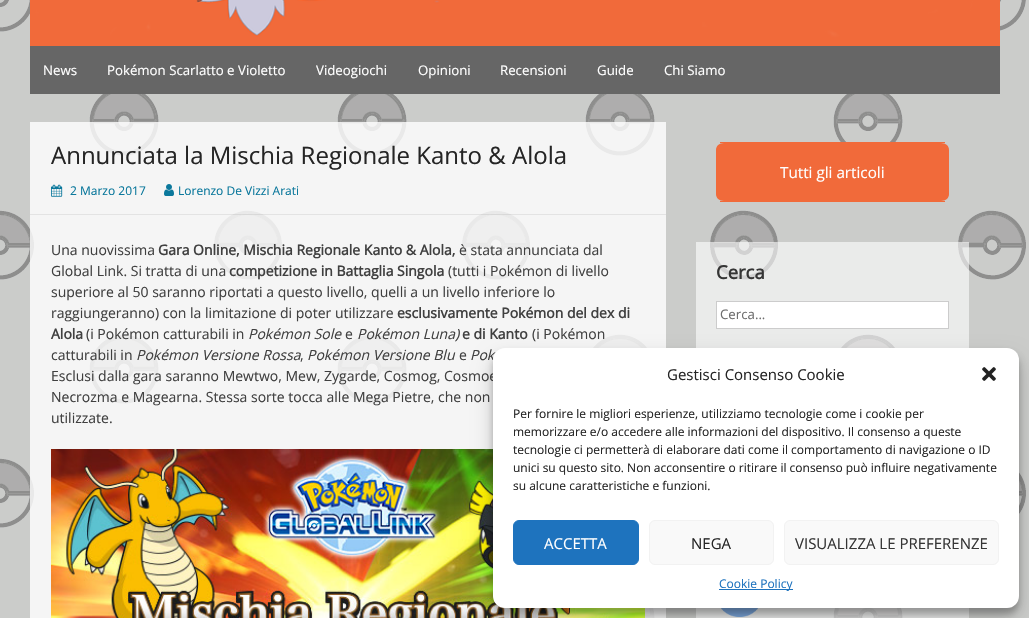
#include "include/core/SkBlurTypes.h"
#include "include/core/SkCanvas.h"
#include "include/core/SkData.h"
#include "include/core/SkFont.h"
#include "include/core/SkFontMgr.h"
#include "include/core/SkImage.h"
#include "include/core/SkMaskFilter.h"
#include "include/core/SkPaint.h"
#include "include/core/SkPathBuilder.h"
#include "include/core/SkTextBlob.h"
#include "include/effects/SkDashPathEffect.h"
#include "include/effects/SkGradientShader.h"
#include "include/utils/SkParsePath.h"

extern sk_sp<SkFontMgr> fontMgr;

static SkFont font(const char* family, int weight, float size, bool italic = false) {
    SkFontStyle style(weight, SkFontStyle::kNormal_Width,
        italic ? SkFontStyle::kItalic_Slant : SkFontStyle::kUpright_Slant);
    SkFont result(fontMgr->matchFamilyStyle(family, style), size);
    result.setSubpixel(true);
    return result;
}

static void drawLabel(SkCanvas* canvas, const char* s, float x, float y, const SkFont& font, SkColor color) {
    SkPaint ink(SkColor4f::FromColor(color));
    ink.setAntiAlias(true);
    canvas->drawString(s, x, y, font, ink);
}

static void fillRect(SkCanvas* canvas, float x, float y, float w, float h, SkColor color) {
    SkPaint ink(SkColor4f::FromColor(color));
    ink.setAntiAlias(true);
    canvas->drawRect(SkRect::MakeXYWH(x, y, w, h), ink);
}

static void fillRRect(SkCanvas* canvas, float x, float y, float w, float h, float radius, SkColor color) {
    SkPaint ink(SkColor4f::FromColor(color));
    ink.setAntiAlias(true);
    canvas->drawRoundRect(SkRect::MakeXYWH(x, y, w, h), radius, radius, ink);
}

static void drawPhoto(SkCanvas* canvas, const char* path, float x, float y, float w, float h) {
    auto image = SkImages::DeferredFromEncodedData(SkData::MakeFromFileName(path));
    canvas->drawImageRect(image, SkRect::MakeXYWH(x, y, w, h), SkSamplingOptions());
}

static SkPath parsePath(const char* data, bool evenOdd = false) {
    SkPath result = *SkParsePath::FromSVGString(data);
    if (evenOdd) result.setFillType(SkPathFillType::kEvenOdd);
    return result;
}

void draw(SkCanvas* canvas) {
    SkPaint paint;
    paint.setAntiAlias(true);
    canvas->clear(0xFFFFFFFF);
    drawPhoto(canvas, "assets/img1.png", 0, 0, 1029, 618);
    drawPhoto(canvas, "assets/img2.png", 30, 0, 970, 46);
    fillRect(canvas, 30, 46, 970, 48, 0xFF666666);
    SkFont font1 = font("Open Sans", 400, 13.25f);
    drawLabel(canvas, "News", 43, 75, font1, 0xFFFFFFFF);
    drawLabel(canvas, "Pokémon Scarlatto e Violetto", 107, 75, font1, 0xFFFFFFFF);
    drawLabel(canvas, "Videogiochi", 316, 75, font1, 0xFFFFFFFF);
    drawLabel(canvas, "Opinioni", 418, 75, font1, 0xFFFFFFFF);
    drawLabel(canvas, "Recensioni", 500, 75, font1, 0xFFFFFFFF);
    drawLabel(canvas, "Guide", 597, 75, font1, 0xFFFFFFFF);
    drawLabel(canvas, "Chi Siamo", 664, 75, font1, 0xFFFFFFFF);
    fillRect(canvas, 30, 122, 636, 496, 0xCCFFFFFF);
    fillRect(canvas, 30, 214, 636, 1, 0x12000000);
    SkFont font2 = font("Open Sans", 400, 24);
    drawLabel(canvas, "Annunciata la Mischia Regionale Kanto & Alola", 51, 164, font2, 0xFF252525);
    drawPhoto(canvas, "assets/img3.png", 51, 184, 12, 13);
    SkFont font3 = font("Open Sans", 400, 12);
    drawLabel(canvas, "2 Marzo 2017", 70, 195, font3, 0xFF0B789C);
    drawPhoto(canvas, "assets/img4.png", 164, 184, 10, 12);
    drawLabel(canvas, "Lorenzo De Vizzi Arati", 178, 195, font3, 0xFF0B789C);
    SkFont font4 = font("Open Sans", 400, 14);
    drawLabel(canvas, "Una nuovissima", 51, 255, font4, 0xFF404040);
    SkFont font5 = font("Open Sans", 700, 14);
    drawLabel(canvas, "Gara Online, Mischia Regionale Kanto & Alola,", 158, 255, font5, 0xFF404040);
    drawLabel(canvas, "è stata annunciata dal", 459, 255, font4, 0xFF404040);
    drawLabel(canvas, "Global Link. Si tratta di una", 51, 276, font4, 0xFF404040);
    drawLabel(canvas, "competizione in Battaglia Singola", 229, 276, font5, 0xFF404040);
    drawLabel(canvas, "(tutti i Pokémon di livello", 448, 276, font4, 0xFF404040);
    drawLabel(canvas, "superiore al 50 saranno riportati a questo livello, quelli a un livello inferiore lo", 51, 297, font4, 0xFF404040);
    drawLabel(canvas, "raggiungeranno) con la limitazione di poter utilizzare", 51, 318, font4, 0xFF404040);
    drawLabel(canvas, "esclusivamente Pokémon del dex di", 397, 318, font5, 0xFF404040);
    drawLabel(canvas, "Alola", 51, 339, font5, 0xFF404040);
    drawLabel(canvas, "(i Pokémon catturabili in", 86, 339, font4, 0xFF404040);
    SkFont font6 = font("Open Sans", 400, 14, true);
    drawLabel(canvas, "Pokémon Sole", 248, 339, font6, 0xFF404040);
    drawLabel(canvas, "e", 345, 339, font4, 0xFF404040);
    drawLabel(canvas, "Pokémon Luna)", 357, 339, font6, 0xFF404040);
    drawLabel(canvas, "e di Kanto", 462, 339, font5, 0xFF404040);
    drawLabel(canvas, "(i Pokémon", 532, 339, font4, 0xFF404040);
    drawLabel(canvas, "catturabili in", 51, 360, font4, 0xFF404040);
    drawLabel(canvas, "Pokémon Versione Rossa", 136, 360, font6, 0xFF404040);
    drawLabel(canvas, ",", 300, 360, font4, 0xFF404040);
    drawLabel(canvas, "Pokémon Versione Blu", 307, 360, font6, 0xFF404040);
    drawLabel(canvas, "e", 459, 360, font4, 0xFF404040);
    drawLabel(canvas, "Pok", 470, 360, font6, 0xFF404040);
    drawLabel(canvas, "Esclusi dalla gara saranno Mewtwo, Mew, Zygarde, Cosmog, Cosmoe", 51, 381, font4, 0xFF404040);
    drawLabel(canvas, "Necrozma e Magearna. Stessa sorte tocca alle Mega Pietre, che non", 51, 402, font4, 0xFF404040);
    drawLabel(canvas, "utilizzate.", 51, 423, font4, 0xFF404040);
    drawPhoto(canvas, "assets/img5.png", 51, 449, 594, 169);
    paint.setColor(0xFFF16A3A);
    canvas->drawPath(parsePath("M724 143H941C946 143 949 146 949 150V194C949 198 946 201 941 201H724C719 201 716 198 716 194V150C716 146 719 143 724 143Z"), paint);
    fillRect(canvas, 720, 142, 225, 1, 0xFFF16A3A);
    fillRect(canvas, 720, 201, 225, 1, 0xFFF16A3A);
    SkFont font7 = font("Open Sans", 400, 15.25f);
    drawLabel(canvas, "Tutti gli articoli", 780, 178, font7, 0xFFFFFFFF);
    fillRect(canvas, 696, 242, 273, 106, 0x99FFFFFF);
    SkFont font8 = font("Open Sans", 700, 18.5f);
    drawLabel(canvas, "Cerca", 716, 279, font8, 0xFF353535);
    paint.setColor(0xFFFFFFFF);
    canvas->drawRect(SkRect::MakeXYWH(716.5f, 301.5f, 232, 27), paint);
    paint.setStroke(true);
    paint.setStrokeWidth(1);
    paint.setColor(0xFFCCCCCC);
    canvas->drawRect(SkRect::MakeXYWH(716.5f, 301.5f, 232, 27), paint);
    drawLabel(canvas, "Cerca...", 720, 319, font1, 0xFF6E6E6E);
    fillRect(canvas, 696, 608, 273, 10, 0x99FFFFFF);
    drawPhoto(canvas, "assets/img6.png", 721, 608, 37, 9);
    paint.setStroke(false);
    paint.setColor(0x3B000000);
    paint.setMaskFilter(SkMaskFilter::MakeBlur(kNormal_SkBlurStyle, 3));
    canvas->drawRoundRect(SkRect::MakeXYWH(493, 354, 526, 260), 12, 12, paint);
    paint.setMaskFilter(nullptr);
    paint.setColor(0x30000000);
    paint.setMaskFilter(SkMaskFilter::MakeBlur(kNormal_SkBlurStyle, 10));
    canvas->drawRoundRect(SkRect::MakeXYWH(493, 358, 526, 260), 12, 12, paint);
    paint.setMaskFilter(nullptr);
    fillRRect(canvas, 493, 348, 526, 260, 12, 0xFFFFFFFF);
    SkFont font9 = font("Open Sans", 400, 15);
    drawLabel(canvas, "Gestisci Consenso Cookie", 667, 380, font9, 0xFF252525);
    drawPhoto(canvas, "assets/img7.png", 982, 367, 14, 14);
    drawLabel(canvas, "Per fornire le migliori esperienze, utilizziamo tecnologie come i cookie per", 513, 418, font3, 0xFF252525);
    drawLabel(canvas, "memorizzare e/o accedere alle informazioni del dispositivo. Il consenso a queste", 513, 436, font3, 0xFF252525);
    drawLabel(canvas, "tecnologie ci permetterà di elaborare dati come il comportamento di navigazione o ID", 513, 454, font3, 0xFF252525);
    drawLabel(canvas, "unici su questo sito. Non acconsentire o ritirare il consenso può influire negativamente", 513, 472, font3, 0xFF252525);
    drawLabel(canvas, "su alcune caratteristiche e funzioni.", 513, 490, font3, 0xFF252525);
    paint.setColor(0xFF1E73BE);
    canvas->drawRoundRect(SkRect::MakeXYWH(513.5f, 520.5f, 125, 44), 5.5f, 5.5f, paint);
    paint.setStroke(true);
    canvas->drawRoundRect(SkRect::MakeXYWH(513.5f, 520.5f, 125, 44), 5.5f, 5.5f, paint);
    drawLabel(canvas, "ACCETTA", 544, 549, font9, 0xFFFFFFFF);
    paint.setStroke(false);
    paint.setColor(0xFFF9F9F9);
    canvas->drawRoundRect(SkRect::MakeXYWH(649.5f, 520.5f, 124, 44), 5.5f, 5.5f, paint);
    paint.setStroke(true);
    paint.setColor(0xFFF2F2F2);
    canvas->drawRoundRect(SkRect::MakeXYWH(649.5f, 520.5f, 124, 44), 5.5f, 5.5f, paint);
    drawLabel(canvas, "NEGA", 691, 549, font9, 0xFF252525);
    paint.setStroke(false);
    paint.setColor(0xFFF9F9F9);
    canvas->drawRoundRect(SkRect::MakeXYWH(784.5f, 520.5f, 214, 44), 5.5f, 5.5f, paint);
    paint.setStroke(true);
    paint.setColor(0xFFF2F2F2);
    canvas->drawRoundRect(SkRect::MakeXYWH(784.5f, 520.5f, 214, 44), 5.5f, 5.5f, paint);
    drawLabel(canvas, "VISUALIZZA LE PREFERENZE", 795, 549, font9, 0xFF353535);
    fillRect(canvas, 719, 589, 74, 1, 0xFF1E73BE);
    drawLabel(canvas, "Cookie Policy", 719, 588, font3, 0xFF1E73BE);
}
